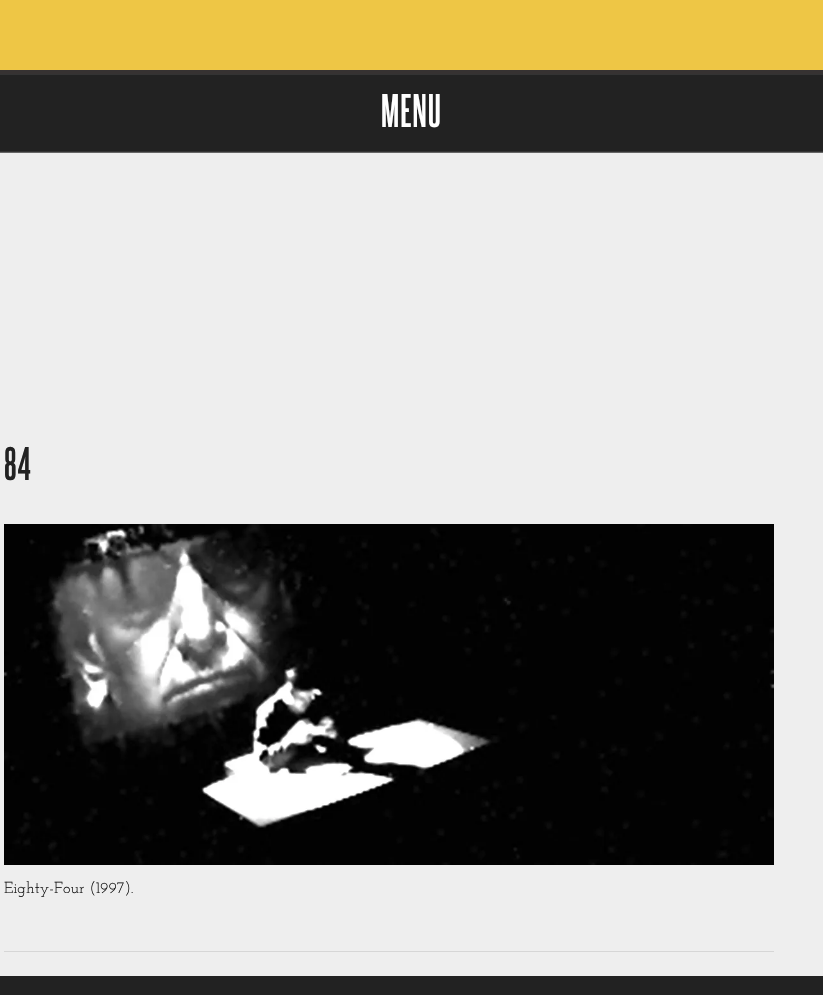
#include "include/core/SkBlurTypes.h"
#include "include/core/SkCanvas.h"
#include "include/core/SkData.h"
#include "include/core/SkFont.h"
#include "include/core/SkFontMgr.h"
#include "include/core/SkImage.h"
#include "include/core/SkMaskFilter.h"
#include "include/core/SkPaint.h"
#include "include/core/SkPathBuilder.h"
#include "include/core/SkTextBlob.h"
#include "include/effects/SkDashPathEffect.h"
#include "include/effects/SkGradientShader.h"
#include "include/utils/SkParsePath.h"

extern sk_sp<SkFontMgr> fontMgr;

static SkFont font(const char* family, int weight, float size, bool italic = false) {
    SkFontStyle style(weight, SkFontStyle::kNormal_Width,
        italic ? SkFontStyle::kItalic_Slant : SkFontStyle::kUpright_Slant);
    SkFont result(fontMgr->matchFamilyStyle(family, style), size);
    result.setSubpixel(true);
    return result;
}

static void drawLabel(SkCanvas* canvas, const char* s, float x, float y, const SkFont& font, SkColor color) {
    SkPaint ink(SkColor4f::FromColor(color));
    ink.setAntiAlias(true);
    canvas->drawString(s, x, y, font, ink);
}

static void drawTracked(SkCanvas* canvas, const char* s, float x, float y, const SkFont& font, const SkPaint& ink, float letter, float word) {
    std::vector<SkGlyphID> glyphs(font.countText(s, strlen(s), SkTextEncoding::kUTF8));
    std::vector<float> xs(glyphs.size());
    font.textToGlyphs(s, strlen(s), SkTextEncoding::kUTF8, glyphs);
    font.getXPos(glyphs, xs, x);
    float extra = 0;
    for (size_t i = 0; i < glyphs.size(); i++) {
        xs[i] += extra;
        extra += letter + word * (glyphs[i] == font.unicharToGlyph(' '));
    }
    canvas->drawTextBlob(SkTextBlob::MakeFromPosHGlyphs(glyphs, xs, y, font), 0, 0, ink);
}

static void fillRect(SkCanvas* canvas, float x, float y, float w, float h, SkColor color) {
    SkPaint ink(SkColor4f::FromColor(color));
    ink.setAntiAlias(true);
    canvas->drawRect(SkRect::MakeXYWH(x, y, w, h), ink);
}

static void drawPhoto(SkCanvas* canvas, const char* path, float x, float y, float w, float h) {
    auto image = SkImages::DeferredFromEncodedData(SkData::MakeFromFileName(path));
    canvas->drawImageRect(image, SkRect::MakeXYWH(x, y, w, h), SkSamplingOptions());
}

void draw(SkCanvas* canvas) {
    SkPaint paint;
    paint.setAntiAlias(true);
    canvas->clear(0xFFEEEEEE);
    fillRect(canvas, 0, 70, 823, 4, 0xFF363232);
    fillRect(canvas, 0, 152, 823, 1, 0xFF666666);
    fillRect(canvas, 0, 0, 823, 70, 0xFFEEC645);
    fillRect(canvas, 0, 75, 823, 76, 0xFF222222);
    fillRect(canvas, 0, 74, 823, 1, 0xFF333333);
    fillRect(canvas, 0, 151, 823, 1, 0xFF333333);
    SkFont font1 = font("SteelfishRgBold", 700, 40);
    paint.setColor(0xFFFFFFFF);
    drawTracked(canvas, "MENU", 381, 127, font1, paint, 1, 0);
    fillRect(canvas, 4, 951, 770, 1, 0xFFD6D6D6);
    paint.setColor(0xFF222222);
    drawTracked(canvas, "84", 4, 480, font1, paint, 1, 0);
    drawPhoto(canvas, "assets/img1.png", 4, 524, 770, 341);
    SkFont font2 = font("Josefin Slab", 400, 16);
    drawLabel(canvas, "Eighty-Four (1997).", 4, 893, font2, 0xFF111111);
    fillRect(canvas, 0, 976, 823, 19, 0xFF222222);
}
